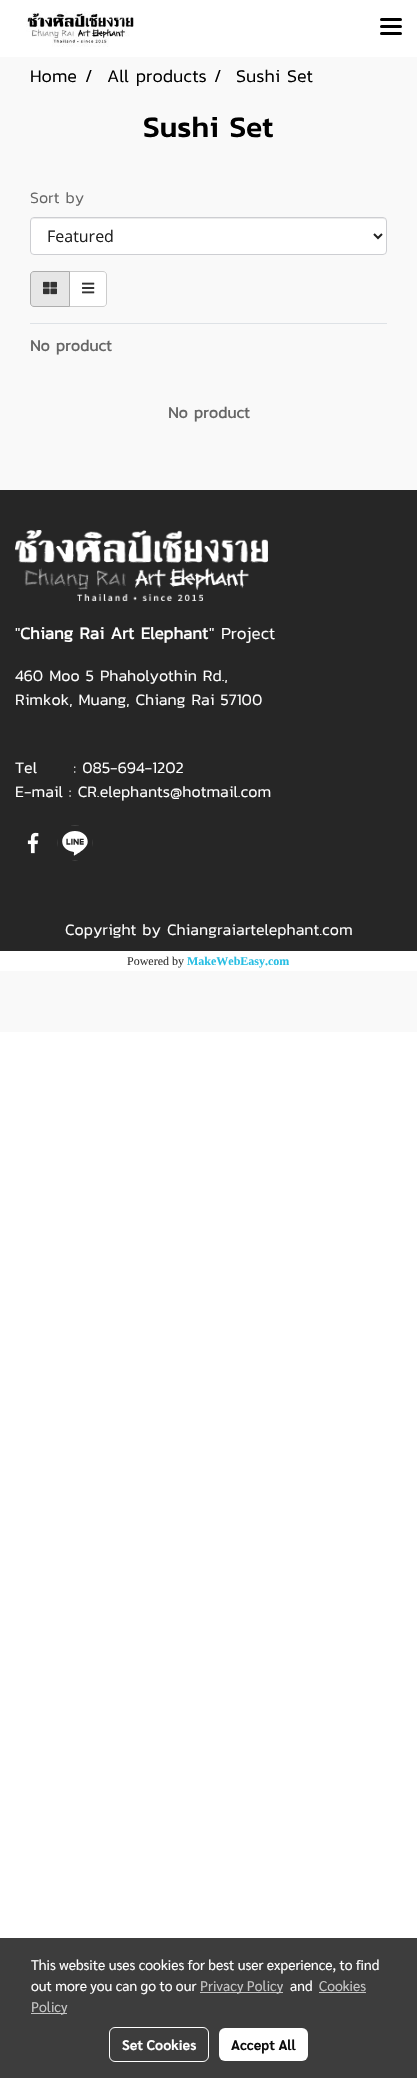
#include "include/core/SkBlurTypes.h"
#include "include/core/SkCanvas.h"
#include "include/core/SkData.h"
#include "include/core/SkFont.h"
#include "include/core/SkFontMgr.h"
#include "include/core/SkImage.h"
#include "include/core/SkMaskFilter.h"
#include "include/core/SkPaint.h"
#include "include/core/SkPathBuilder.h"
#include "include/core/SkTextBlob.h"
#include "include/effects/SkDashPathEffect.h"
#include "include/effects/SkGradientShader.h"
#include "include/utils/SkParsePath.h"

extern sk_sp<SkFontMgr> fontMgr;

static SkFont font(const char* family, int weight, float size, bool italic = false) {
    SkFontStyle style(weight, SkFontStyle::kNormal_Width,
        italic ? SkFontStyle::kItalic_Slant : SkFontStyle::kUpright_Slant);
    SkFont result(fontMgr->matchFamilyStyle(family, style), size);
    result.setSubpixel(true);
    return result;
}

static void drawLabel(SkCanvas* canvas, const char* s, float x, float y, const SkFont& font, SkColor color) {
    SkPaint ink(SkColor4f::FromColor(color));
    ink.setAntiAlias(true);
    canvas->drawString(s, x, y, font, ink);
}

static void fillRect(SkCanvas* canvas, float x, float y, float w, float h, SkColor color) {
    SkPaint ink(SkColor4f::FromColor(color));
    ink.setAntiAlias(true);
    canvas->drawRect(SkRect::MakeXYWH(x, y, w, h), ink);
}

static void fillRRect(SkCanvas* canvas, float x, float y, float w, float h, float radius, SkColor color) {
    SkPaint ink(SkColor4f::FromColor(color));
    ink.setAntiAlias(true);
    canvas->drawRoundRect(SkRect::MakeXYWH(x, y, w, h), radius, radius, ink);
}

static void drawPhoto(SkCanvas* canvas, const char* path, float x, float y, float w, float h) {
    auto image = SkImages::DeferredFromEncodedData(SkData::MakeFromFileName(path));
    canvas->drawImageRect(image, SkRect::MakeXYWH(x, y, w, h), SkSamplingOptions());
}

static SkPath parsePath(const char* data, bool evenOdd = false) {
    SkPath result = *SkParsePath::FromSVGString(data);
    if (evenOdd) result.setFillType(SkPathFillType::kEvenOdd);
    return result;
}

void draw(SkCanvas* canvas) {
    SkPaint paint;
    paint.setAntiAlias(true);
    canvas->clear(0xFFFFFFFF);
    fillRect(canvas, 0, 57, 417, 975, 0xFFF9F9F9);
    drawPhoto(canvas, "assets/img1.png", 26, 11, 108, 36);
    fillRRect(canvas, 380, 25, 22, 3, 1.5f, 0xFF000000);
    fillRRect(canvas, 380, 18, 22, 3, 1.5f, 0xFF000000);
    fillRRect(canvas, 380, 32, 22, 3, 1.5f, 0xFF000000);
    SkFont font1 = font("Kanit", 300, 18);
    drawLabel(canvas, "Home", 30, 82, font1, 0xFF000000);
    drawLabel(canvas, "/", 85, 82, font1, 0xFF000000);
    drawLabel(canvas, "All products", 107, 82, font1, 0xFF000000);
    drawLabel(canvas, "/", 214, 82, font1, 0xFF000000);
    drawLabel(canvas, "Sushi Set", 236, 82, font1, 0xFF000000);
    SkFont font2 = font("Kanit", 500, 30);
    drawLabel(canvas, "Sushi Set", 143, 137, font2, 0xFF000000);
    SkFont font3 = font("Kanit", 300, 16);
    drawLabel(canvas, "Sort by", 30, 203, font3, 0xFF666666);
    fillRRect(canvas, 30, 217, 357, 38, 4, 0xFFFFFFFF);
    paint.setColor(0xFFECECEC);
    canvas->drawPath(parsePath("M34 219H383C385 219 386 220 386 222C386 220 385 218 383 218H34L32 219L31 222C31 220 32 219 34 219Z"), paint);
    paint.setStroke(true);
    paint.setStrokeWidth(1);
    paint.setColor(0xFFCDCED2);
    canvas->drawRoundRect(SkRect::MakeXYWH(30.5f, 217.5f, 356, 37), 3.5f, 3.5f, paint);
    paint.setStrokeWidth(2);
    paint.setColor(0xFF212121);
    canvas->drawPath(parsePath("M374 234L378 238L382 234"), paint);
    SkFont font4 = font("Open Sans", 400, 16);
    drawLabel(canvas, "Featured", 47, 242, font4, 0xFF212121);
    paint.setStroke(false);
    paint.setColor(0xFFFFFFFF);
    canvas->drawPath(parsePath("M69.5 271.5H103C105 271.5 106.5 273 106.5 275V303C106.5 305 105 306.5 103 306.5H69.5Z"), paint);
    paint.setStroke(true);
    paint.setStrokeWidth(1);
    paint.setColor(0xFFCCCCCC);
    canvas->drawPath(parsePath("M69.5 271.5H103C105 271.5 106.5 273 106.5 275V303C106.5 305 105 306.5 103 306.5H69.5Z"), paint);
    paint.setStroke(false);
    paint.setColor(0xFFE6E6E6);
    canvas->drawPath(parsePath("M34 271.5H69.5V306.5H34C32 306.5 30.5 305 30.5 303V275C30.5 273 32 271.5 34 271.5Z"), paint);
    paint.setStroke(true);
    paint.setColor(0xFFADADAD);
    canvas->drawPath(parsePath("M34 271.5H69.5V306.5H34C32 306.5 30.5 305 30.5 303V275C30.5 273 32 271.5 34 271.5Z"), paint);
    drawPhoto(canvas, "assets/img2.png", 43, 281, 14, 14);
    drawPhoto(canvas, "assets/img3.png", 82, 282, 13, 12);
    fillRect(canvas, 30, 323, 357, 1, 0xFFDEE2E6);
    SkFont font5 = font("Kanit", 700, 16);
    drawLabel(canvas, "No product", 30, 351, font5, 0xFF666666);
    drawLabel(canvas, "No product", 168, 418, font5, 0xFF666666);
    fillRect(canvas, 0, 490, 417, 461, 0xFF262626);
    drawPhoto(canvas, "assets/img4.png", 15, 530, 253, 71);
    SkFont font6 = font("Kanit", 300, 17);
    drawLabel(canvas, "\"", 15, 639, font6, 0xFFFFFFFF);
    SkFont font7 = font("Kanit", 700, 17);
    drawLabel(canvas, "Chiang Rai Art Elephant", 20, 639, font7, 0xFFFFFFFF);
    drawLabel(canvas, "\" Project", 209, 639, font6, 0xFFFFFFFF);
    drawLabel(canvas, "460 Moo 5 Phaholyothin Rd.,", 15, 681, font3, 0xFFFFFFFF);
    drawLabel(canvas, "Rimkok, Muang, Chiang Rai 57100", 15, 705, font3, 0xFFFFFFFF);
    drawLabel(canvas, "Tel      : 085-694-1202", 15, 773, font3, 0xFFFFFFFF);
    drawLabel(canvas, "E-mail : CR.elephants@hotmail.com", 15, 797, font3, 0xFFFFFFFF);
    drawPhoto(canvas, "assets/img5.png", 27, 832, 12, 22);
    drawPhoto(canvas, "assets/img6.png", 57, 825, 36, 36);
    drawLabel(canvas, "Copyright by Chiangraiartelephant.com", 65, 935, font3, 0xFFFFFFFF);
    fillRect(canvas, 0, 951, 417, 20, 0xFFFFFFFF);
    SkFont font8 = font("Liberation Serif", 400, 12);
    drawLabel(canvas, "Powered by", 127, 965, font8, 0xFF353535);
    SkFont font9 = font("Liberation Serif", 700, 12);
    drawLabel(canvas, "MakeWebEasy.com", 187, 965, font9, 0xFF28BEE3);
    fillRect(canvas, 0, 1938, 417, 140, 0xFF3D3D3D);
    SkFont font10 = font("Sarabun", 400, 14);
    drawLabel(canvas, "This website uses cookies for best user experience, to find", 31, 1970, font10, 0xFFFFFFFF);
    drawLabel(canvas, "out more you can go to our", 31, 1991, font10, 0xFFFFFFFF);
    fillRect(canvas, 200, 1992, 83, 1, 0xFFC5C5C5);
    drawLabel(canvas, "Privacy Policy", 200, 1991, font10, 0xFFC5C5C5);
    drawLabel(canvas, "and", 290, 1991, font10, 0xFFFFFFFF);
    drawLabel(canvas, "Cookies", 319, 1991, font10, 0xFFC5C5C5);
    fillRect(canvas, 319, 1992, 47, 1, 0xFFC5C5C5);
    fillRect(canvas, 31, 2013, 36, 1, 0xFFC5C5C5);
    drawLabel(canvas, "Policy", 31, 2012, font10, 0xFFC5C5C5);
    paint.setColor(0xFFFFFFFF);
    canvas->drawRoundRect(SkRect::MakeXYWH(109.5f, 2027.5f, 99, 34), 5.5f, 5.5f, paint);
    SkFont font11 = font("Sarabun", 700, 14);
    drawLabel(canvas, "Set Cookies", 122, 2050, font11, 0xFFFFFFFF);
    fillRRect(canvas, 219, 2028, 89, 33, 6, 0xFFFFFFFF);
    drawLabel(canvas, "Accept All", 231, 2050, font11, 0xFF0D0D0D);
}
